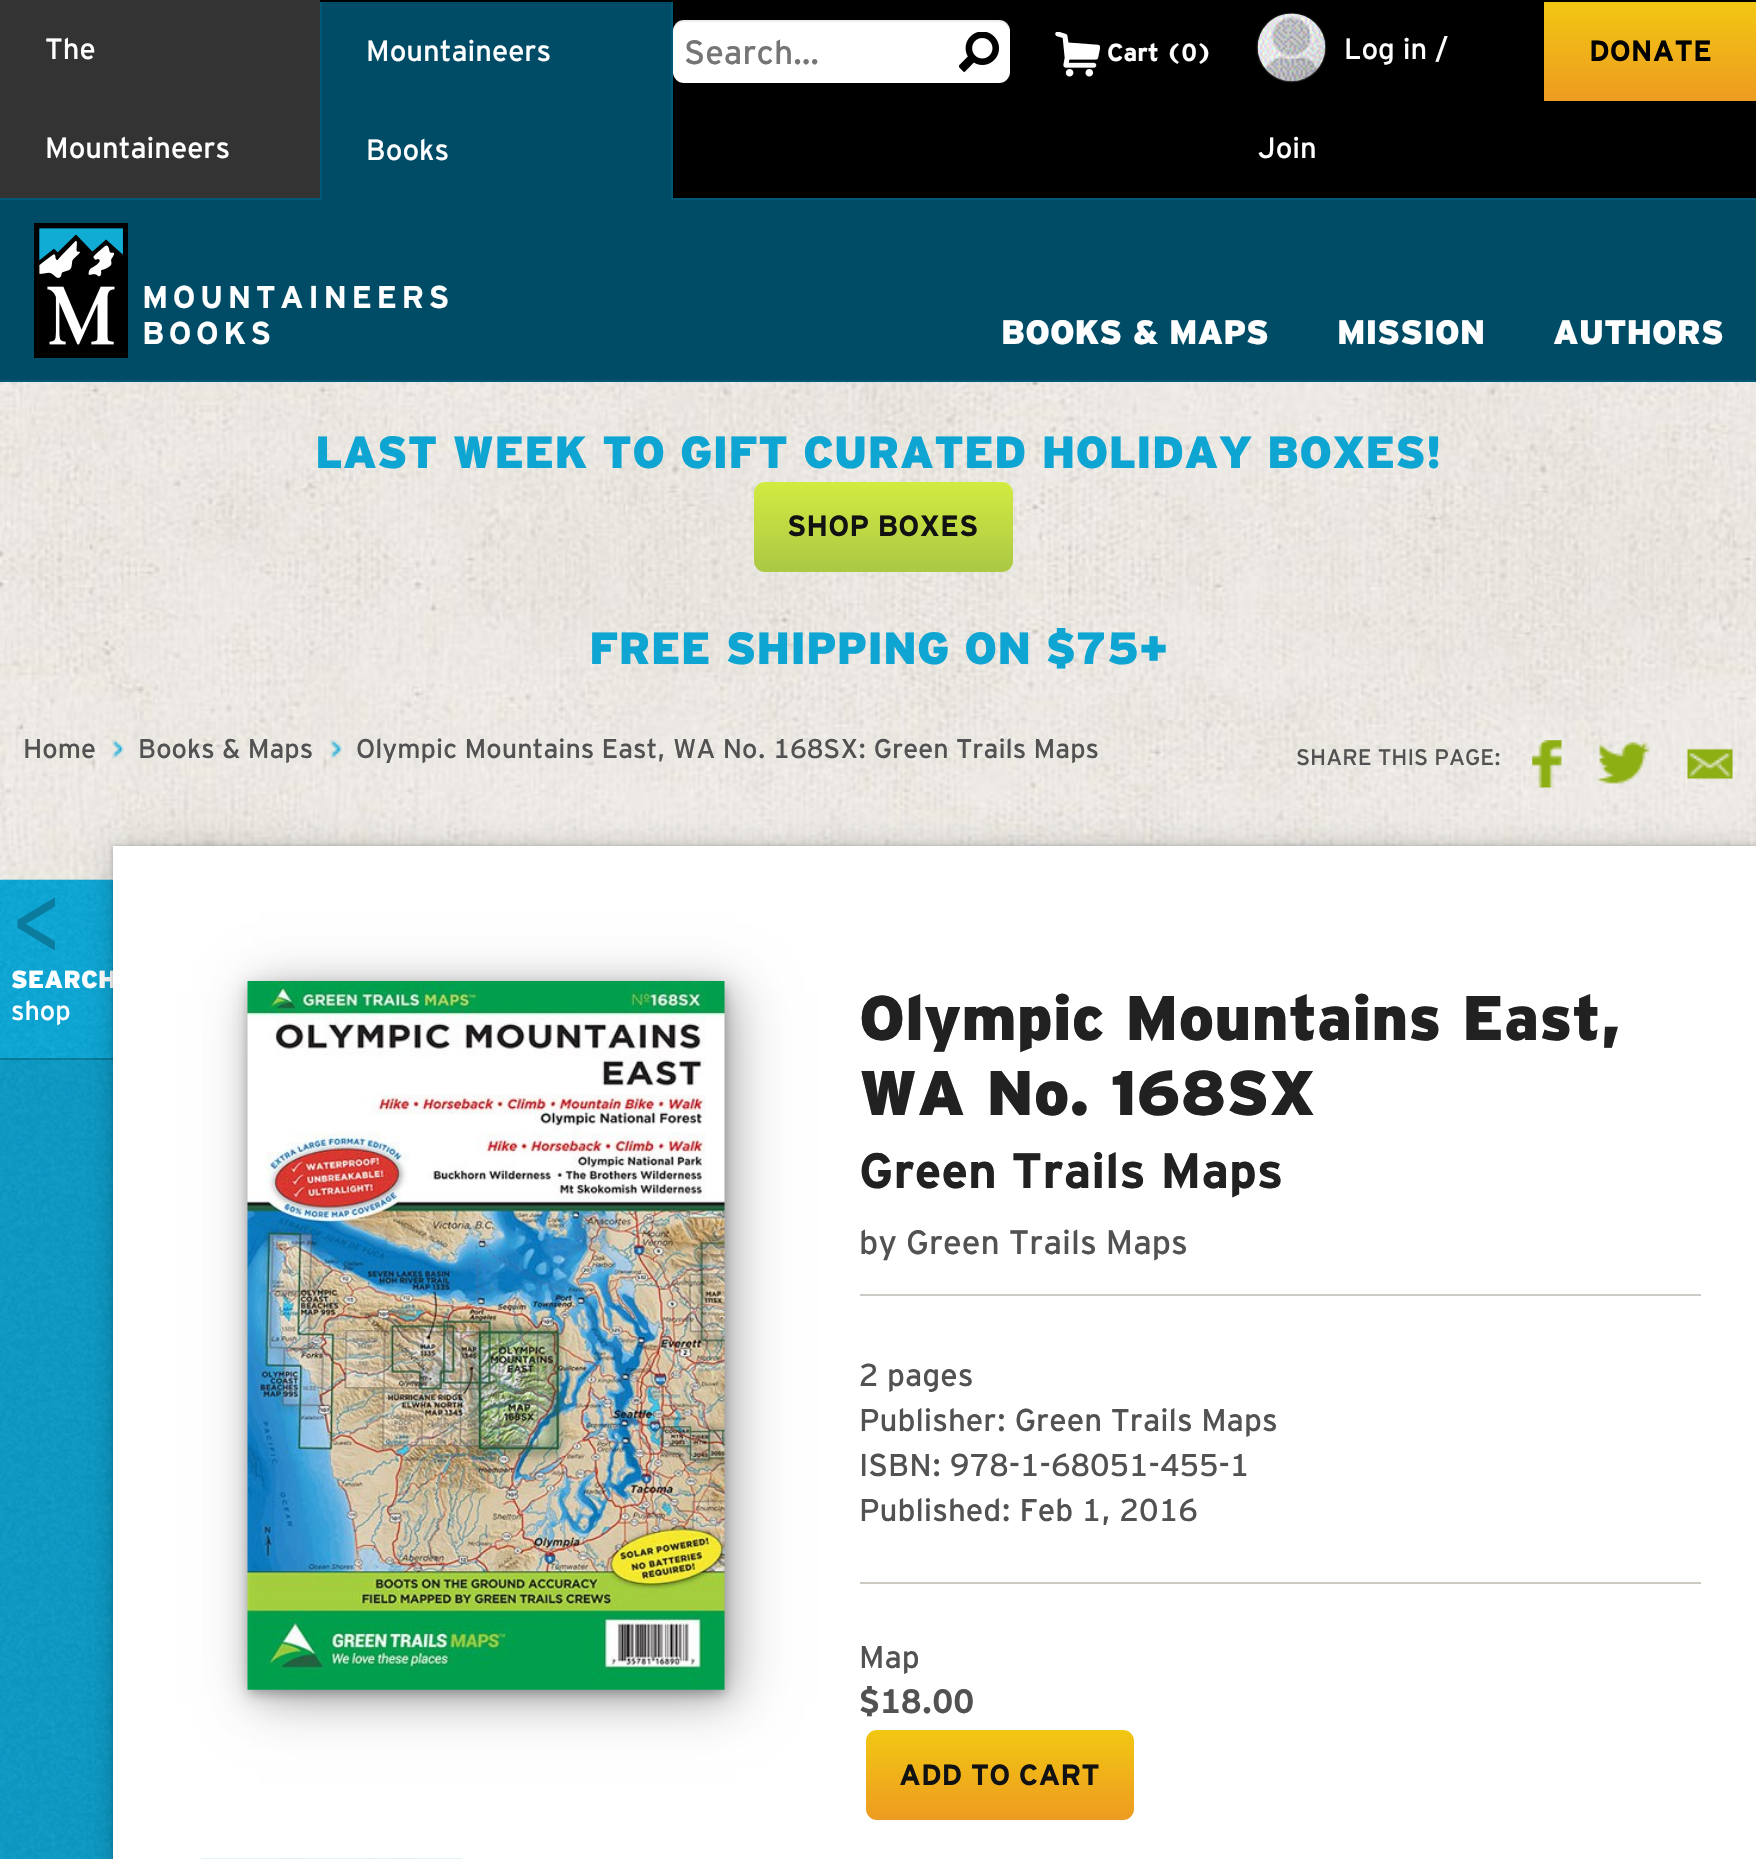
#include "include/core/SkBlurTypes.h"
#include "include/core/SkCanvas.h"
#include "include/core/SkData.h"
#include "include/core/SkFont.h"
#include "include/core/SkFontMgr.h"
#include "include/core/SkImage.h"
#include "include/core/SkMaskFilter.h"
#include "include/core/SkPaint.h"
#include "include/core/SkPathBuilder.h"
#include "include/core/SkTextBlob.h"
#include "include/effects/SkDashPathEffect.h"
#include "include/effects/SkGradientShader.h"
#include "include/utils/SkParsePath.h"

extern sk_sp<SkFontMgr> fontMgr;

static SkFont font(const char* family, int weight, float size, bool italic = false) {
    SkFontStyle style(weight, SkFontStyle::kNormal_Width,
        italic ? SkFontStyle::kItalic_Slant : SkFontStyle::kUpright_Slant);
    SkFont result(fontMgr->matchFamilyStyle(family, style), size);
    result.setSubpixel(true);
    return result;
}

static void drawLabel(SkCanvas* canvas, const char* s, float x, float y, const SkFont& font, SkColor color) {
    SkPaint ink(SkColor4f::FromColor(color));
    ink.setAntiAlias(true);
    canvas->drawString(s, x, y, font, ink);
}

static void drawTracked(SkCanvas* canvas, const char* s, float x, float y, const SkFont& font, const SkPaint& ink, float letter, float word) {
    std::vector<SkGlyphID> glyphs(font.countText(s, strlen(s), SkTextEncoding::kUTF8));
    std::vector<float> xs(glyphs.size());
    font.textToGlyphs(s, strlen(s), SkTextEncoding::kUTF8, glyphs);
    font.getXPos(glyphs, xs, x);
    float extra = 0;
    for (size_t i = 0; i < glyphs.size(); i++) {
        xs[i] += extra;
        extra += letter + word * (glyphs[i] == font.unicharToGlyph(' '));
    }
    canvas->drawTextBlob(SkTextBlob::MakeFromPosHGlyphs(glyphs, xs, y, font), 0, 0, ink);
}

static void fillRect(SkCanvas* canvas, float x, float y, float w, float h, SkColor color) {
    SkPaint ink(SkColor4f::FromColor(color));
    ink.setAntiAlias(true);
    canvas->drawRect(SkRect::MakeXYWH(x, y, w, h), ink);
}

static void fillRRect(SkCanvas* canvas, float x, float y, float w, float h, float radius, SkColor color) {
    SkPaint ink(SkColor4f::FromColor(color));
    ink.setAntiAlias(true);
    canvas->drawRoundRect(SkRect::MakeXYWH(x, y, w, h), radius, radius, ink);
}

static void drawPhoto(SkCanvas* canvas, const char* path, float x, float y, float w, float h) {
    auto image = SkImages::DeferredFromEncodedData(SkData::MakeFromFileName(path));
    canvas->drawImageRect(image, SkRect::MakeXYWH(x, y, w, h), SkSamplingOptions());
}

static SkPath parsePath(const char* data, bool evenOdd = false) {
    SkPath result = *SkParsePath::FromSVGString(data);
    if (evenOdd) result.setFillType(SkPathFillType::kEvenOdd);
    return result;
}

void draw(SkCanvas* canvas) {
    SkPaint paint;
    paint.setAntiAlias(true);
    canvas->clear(0xFFFFFFFF);
    drawPhoto(canvas, "assets/img1.png", 0, 382, 1756, 498);
    fillRect(canvas, 320, 0, 1436, 198, 0xFF000000);
    fillRect(canvas, 0, 0, 320, 198, 0xFF333333);
    SkFont font1 = font("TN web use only", 400, 29.25f);
    drawLabel(canvas, "The", 45, 59, font1, 0xFFFFFFFF);
    drawLabel(canvas, "Mountaineers", 45, 158, font1, 0xFFFFFFFF);
    fillRect(canvas, 0, 198, 1756, 2, 0xFF005A77);
    fillRect(canvas, 322, 2, 349, 198, 0xFF004C66);
    fillRect(canvas, 671, 2, 2, 198, 0xFF005A77);
    fillRect(canvas, 320, 2, 2, 198, 0xFF005A77);
    drawLabel(canvas, "Mountaineers", 366, 61, font1, 0xFFFFFFFF);
    drawLabel(canvas, "Books", 366, 160, font1, 0xFFFFFFFF);
    fillRRect(canvas, 673, 20, 337, 63, 11, 0xFFFFFFFF);
    paint.setColor(0x12000000);
    canvas->drawPath(parsePath("M684 22H999C1005 22 1010 28 1010 34V31C1010 25 1005 20 999 20H684C678 20 673 25 673 31V34C673 28 678 22 684 22Z"), paint);
    SkFont font2 = font("TN web use only", 400, 33.75f);
    drawLabel(canvas, "Search…", 684, 64, font2, 0xFF757575);
    drawPhoto(canvas, "assets/img2.png", 959, 32, 40, 40);
    drawPhoto(canvas, "assets/img3.png", 1055, 32, 45, 45);
    SkFont font3 = font("TN web use only", 700, 24.75f);
    drawLabel(canvas, "Cart (0)", 1107, 61, font3, 0xFFFFFFFF);
    paint.setColor(0xFFCCCCCC);
    paint.setMaskFilter(SkMaskFilter::MakeBlur(kNormal_SkBlurStyle, 1));
    canvas->drawRoundRect(SkRect::MakeXYWH(1258, 14, 67, 67), 33.5f, 33.5f, paint);
    paint.setMaskFilter(nullptr);
    drawPhoto(canvas, "assets/img4.png", 1257, 13, 69, 68);
    drawLabel(canvas, "Log in /", 1344, 59, font1, 0xFFFFFFFF);
    drawLabel(canvas, "Join", 1258, 158, font1, 0xFFFFFFFF);
    {
        const SkColor colors[] = {0xFFF2C712, 0xFFED9B21};
        const float stops[] = {0, 1};
        const SkPoint ends[] = {{1650, 2.2f}, {1650, 101}};
        paint.setShader(SkGradientShader::MakeLinear(ends, colors, stops, 2, SkTileMode::kClamp));
        paint.setAlpha(255);
    }
    canvas->drawRect(SkRect::MakeXYWH(1544, 2, 212, 99), paint);
    SkFont font4 = font("TN web use only", 700, 29.25f);
    drawLabel(canvas, "DONATE", 1589, 61, font4, 0xFF000000);
    fillRect(canvas, 0, 200, 1756, 180, 0xFF004C66);
    fillRect(canvas, 0, 380, 1756, 2, 0xFF005A77);
    drawPhoto(canvas, "assets/img5.png", 34, 223, 94, 135);
    SkFont font5 = font("TN web use only", 700, 31.5f);
    paint.setShader(nullptr);
    paint.setColor(0xFFFFFFFF);
    drawTracked(canvas, "MOUNTAINEERS", 142, 308, font5, paint, 4.5f, 0);
    drawTracked(canvas, "BOOKS", 142, 344, font5, paint, 4.5f, 0);
    SkFont font6 = font("TN web use only", 900, 33.75f);
    drawLabel(canvas, "BOOKS & MAPS", 1001, 344, font6, 0xFFFFFFFF);
    drawLabel(canvas, "MISSION", 1337, 344, font6, 0xFFFFFFFF);
    drawLabel(canvas, "AUTHORS", 1553, 344, font6, 0xFFFFFFFF);
    SkFont font7 = font("TN web use only", 900, 45);
    drawLabel(canvas, "LAST WEEK TO GIFT CURATED HOLIDAY BOXES!", 315, 468, font7, 0xFF0EA5D2);
    {
        const SkColor colors[] = {0xFFD2EB41, 0xFFABC844};
        const float stops[] = {0, 1};
        const SkPoint ends[] = {{883, 482}, {883, 572}};
        paint.setShader(SkGradientShader::MakeLinear(ends, colors, stops, 2, SkTileMode::kClamp));
        paint.setAlpha(255);
    }
    canvas->drawRoundRect(SkRect::MakeXYWH(754, 482, 259, 90), 11, 11, paint);
    drawLabel(canvas, "SHOP BOXES", 787, 536, font4, 0xFF121212);
    drawLabel(canvas, "FREE SHIPPING ON $75+", 589, 664, font7, 0xFF0EA5D2);
    SkFont font8 = font("TN web use only", 400, 27);
    drawLabel(canvas, "Home", 23, 758, font8, 0xFF525252);
    drawPhoto(canvas, "assets/img6.png", 112, 740, 12, 19);
    drawLabel(canvas, "Books & Maps", 138, 758, font8, 0xFF525252);
    drawPhoto(canvas, "assets/img7.png", 330, 740, 12, 19);
    drawLabel(canvas, "Olympic Mountains East, WA No. 168SX: Green Trails Maps", 356, 758, font8, 0xFF525252);
    SkFont font9 = font("TN web use only", 400, 22.5f);
    drawLabel(canvas, "SHARE THIS PAGE:", 1296, 765, font9, 0xFF525252);
    drawPhoto(canvas, "assets/img8.png", 1532, 740, 30, 48);
    drawPhoto(canvas, "assets/img9.png", 1597, 742, 53, 42);
    drawPhoto(canvas, "assets/img10.png", 1687, 748, 46, 32);
    drawPhoto(canvas, "assets/img11.png", 0, 879, 113, 980);
    drawPhoto(canvas, "assets/img12.png", 0, 879, 113, 181);
    fillRect(canvas, 0, 1058, 113, 2, 0x40000000);
    SkFont font10 = font("TN web use only", 400, 81);
    drawLabel(canvas, "<", 11, 952, font10, 0xFF0B7C9E);
    SkFont font11 = font("TN web use only", 900, 24.75f);
    drawLabel(canvas, "SEARCH", 11, 988, font11, 0xFFFFFFFF);
    drawLabel(canvas, "shop", 11, 1020, font8, 0xFFFFFFFF);
    paint.setShader(nullptr);
    paint.setColor(0x33000000);
    paint.setMaskFilter(SkMaskFilter::MakeBlur(kNormal_SkBlurStyle, 13.5f));
    canvas->drawRect(SkRect::MakeXYWH(113, 848, 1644, 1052), paint);
    paint.setMaskFilter(nullptr);
    paint.setMaskFilter(SkMaskFilter::MakeBlur(kNormal_SkBlurStyle, 2));
    canvas->drawRect(SkRect::MakeXYWH(113, 846, 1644, 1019), paint);
    paint.setMaskFilter(nullptr);
    fillRect(canvas, 113, 846, 1643, 1013, 0xFFFFFFFF);
    paint.setMaskFilter(SkMaskFilter::MakeBlur(kNormal_SkBlurStyle, 28));
    canvas->drawRect(SkRect::MakeXYWH(259, 992, 477, 709), paint);
    paint.setMaskFilter(nullptr);
    paint.setMaskFilter(SkMaskFilter::MakeBlur(kNormal_SkBlurStyle, 17));
    canvas->drawRect(SkRect::MakeXYWH(252, 988, 477, 709), paint);
    paint.setMaskFilter(nullptr);
    paint.setColor(0x40000000);
    paint.setMaskFilter(SkMaskFilter::MakeBlur(kNormal_SkBlurStyle, 5.5f));
    canvas->drawRect(SkRect::MakeXYWH(248, 986, 477, 708), paint);
    paint.setMaskFilter(nullptr);
    drawPhoto(canvas, "assets/img13.png", 247, 981, 478, 709);
    fillRect(canvas, 860, 1294, 841, 2, 0xFFCBCAC5);
    SkFont font12 = font("TN web use only", 900, 63);
    drawLabel(canvas, "Olympic Mountains East,", 859, 1040, font12, 0xFF212121);
    drawLabel(canvas, "WA No. 168SX", 859, 1115, font12, 0xFF212121);
    SkFont font13 = font("TN web use only", 700, 49.5f);
    drawLabel(canvas, "Green Trails Maps", 859, 1188, font13, 0xFF212121);
    drawLabel(canvas, "by Green Trails Maps", 859, 1254, font2, 0xFF525252);
    SkFont font14 = font("TN web use only", 400, 31.5f);
    drawLabel(canvas, "2 pages", 859, 1386, font14, 0xFF525252);
    drawLabel(canvas, "Publisher: Green Trails Maps", 859, 1431, font14, 0xFF525252);
    drawLabel(canvas, "ISBN: 978-1-68051-455-1", 859, 1476, font14, 0xFF525252);
    drawLabel(canvas, "Published: Feb 1, 2016", 859, 1521, font14, 0xFF525252);
    fillRect(canvas, 860, 1582, 841, 2, 0xFFCCC9C2);
    drawLabel(canvas, "Map", 859, 1668, font14, 0xFF525252);
    SkFont font15 = font("TN web use only", 700, 33.75f);
    drawLabel(canvas, "$18.00", 859, 1713, font15, 0xFF525252);
    {
        const SkColor colors[] = {0xFFF2C712, 0xFFED9B21};
        const float stops[] = {0, 1};
        const SkPoint ends[] = {{1000, 1730}, {1000, 1820}};
        paint.setShader(SkGradientShader::MakeLinear(ends, colors, stops, 2, SkTileMode::kClamp));
        paint.setAlpha(255);
    }
    canvas->drawRoundRect(SkRect::MakeXYWH(866, 1730, 268, 90), 11, 11, paint);
    drawLabel(canvas, "ADD TO CART", 899, 1785, font4, 0xFF121212);
    drawPhoto(canvas, "assets/img14.png", 200, 1858, 263, 1);
}
